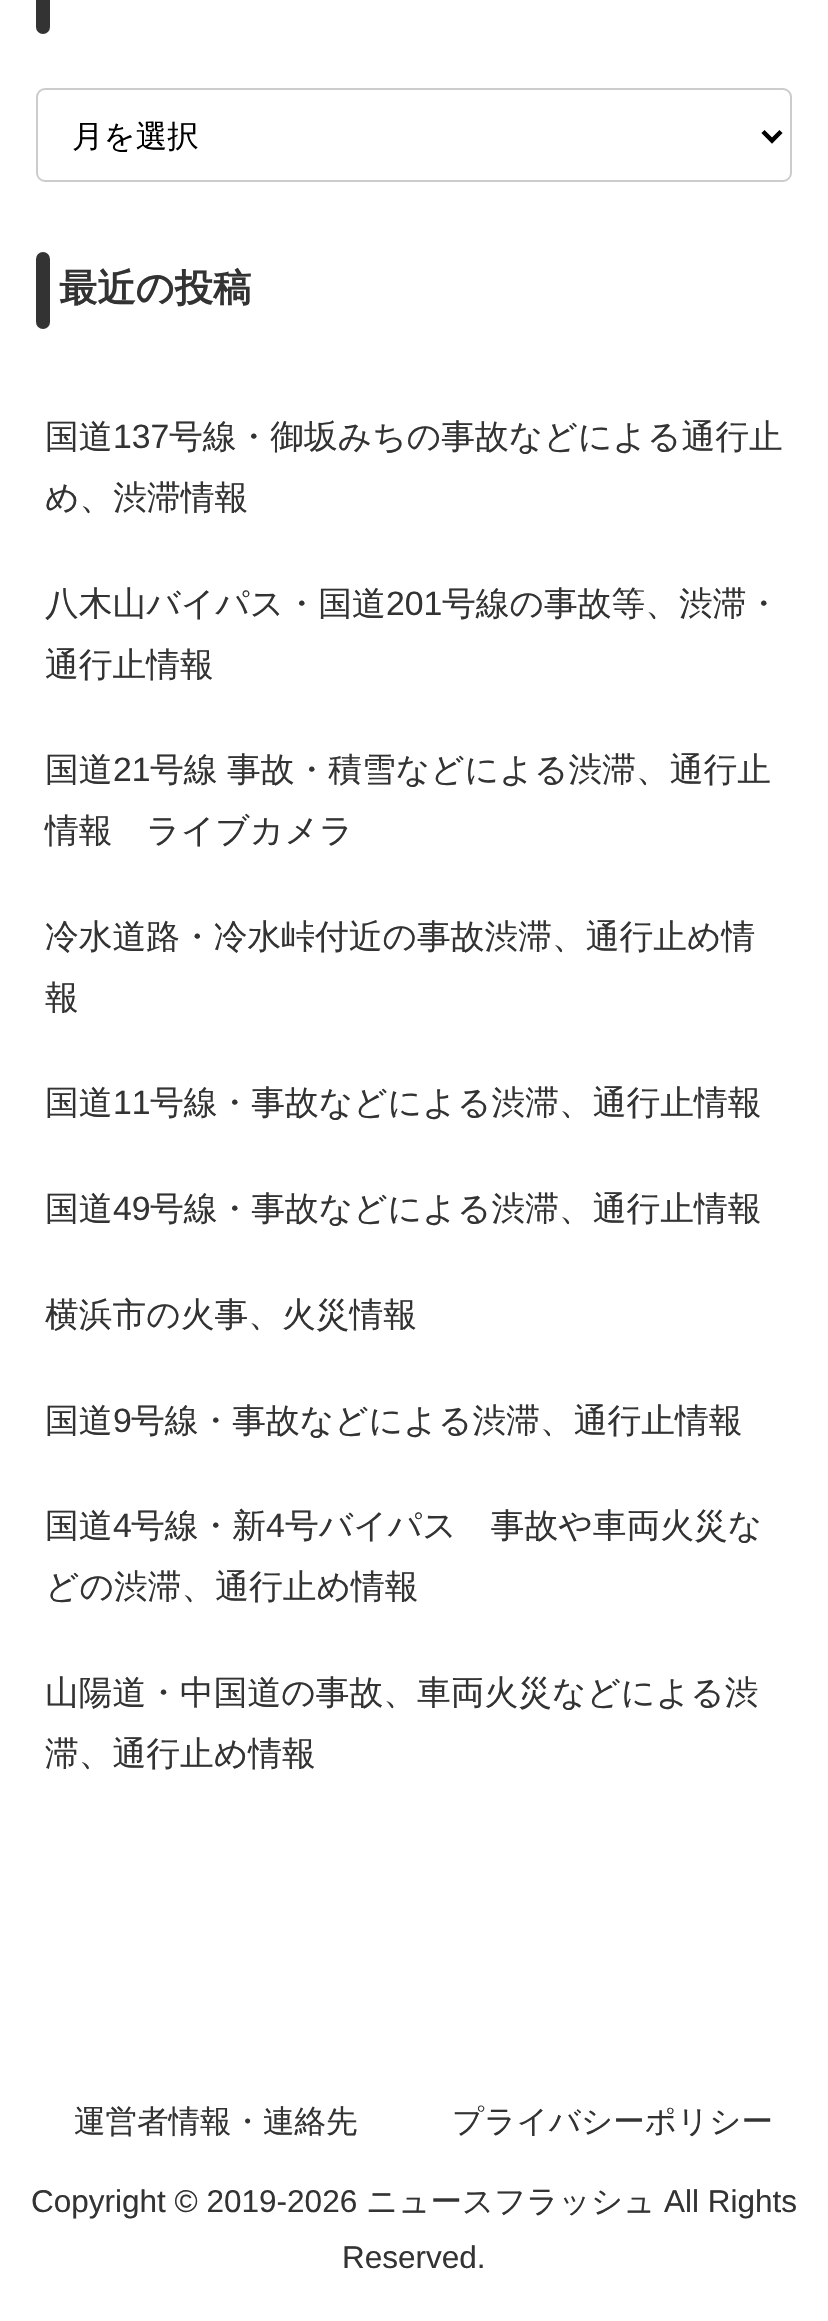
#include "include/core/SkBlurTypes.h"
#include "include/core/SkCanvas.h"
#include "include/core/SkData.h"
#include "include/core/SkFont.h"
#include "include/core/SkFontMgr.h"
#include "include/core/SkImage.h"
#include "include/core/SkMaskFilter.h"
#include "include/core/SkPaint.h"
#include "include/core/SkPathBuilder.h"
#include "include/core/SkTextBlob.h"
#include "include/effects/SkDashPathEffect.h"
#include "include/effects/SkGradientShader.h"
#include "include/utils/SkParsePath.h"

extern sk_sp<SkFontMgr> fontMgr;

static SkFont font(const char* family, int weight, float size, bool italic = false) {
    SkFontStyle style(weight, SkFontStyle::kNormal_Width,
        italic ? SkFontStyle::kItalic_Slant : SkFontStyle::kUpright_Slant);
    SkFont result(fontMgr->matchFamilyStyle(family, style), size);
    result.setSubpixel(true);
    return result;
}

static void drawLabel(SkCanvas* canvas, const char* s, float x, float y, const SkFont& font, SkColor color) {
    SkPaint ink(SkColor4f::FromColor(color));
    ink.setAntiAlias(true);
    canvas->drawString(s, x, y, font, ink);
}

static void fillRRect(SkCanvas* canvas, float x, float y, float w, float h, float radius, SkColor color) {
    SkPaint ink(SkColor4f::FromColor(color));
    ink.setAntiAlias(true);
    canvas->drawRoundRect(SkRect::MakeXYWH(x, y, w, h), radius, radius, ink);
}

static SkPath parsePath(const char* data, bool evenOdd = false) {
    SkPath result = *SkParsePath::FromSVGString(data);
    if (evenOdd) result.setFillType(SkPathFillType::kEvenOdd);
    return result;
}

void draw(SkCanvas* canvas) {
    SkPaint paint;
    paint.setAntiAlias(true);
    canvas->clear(0xFFFFFFFF);
    fillRRect(canvas, 36, -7, 14, 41, 7, 0xFF333333);
    paint.setStroke(true);
    paint.setStrokeWidth(2);
    paint.setColor(0xFFCCCCCC);
    canvas->drawRoundRect(SkRect::MakeXYWH(37, 89, 754, 92), 8, 8, paint);
    paint.setStrokeWidth(4.5f);
    paint.setColor(0xFF000000);
    canvas->drawPath(parsePath("M763 131.5L772 140.5L781 131.5"), paint);
    SkFont font1 = font("WenQuanYi Zen Hei", 500, 31.5f);
    drawLabel(canvas, "月を選択", 72, 147, font1, 0xFF000000);
    fillRRect(canvas, 36, 252, 14, 77, 7, 0xFF333333);
    SkFont font2 = font("WenQuanYi Zen Hei", 700, 38.25f);
    drawLabel(canvas, "最近の投稿", 59, 301, font2, 0xFF333333);
    SkFont font3 = font("WenQuanYi Zen Hei", 500, 33.75f);
    drawLabel(canvas, "国道", 45, 448, font3, 0xFF333333);
    SkFont font4 = font("Liberation Sans", 400, 33.75f);
    drawLabel(canvas, "137", 113, 448, font4, 0xFF333333);
    drawLabel(canvas, "号線・御坂みちの事故などによる通行止", 169, 448, font3, 0xFF333333);
    drawLabel(canvas, "め、渋滞情報", 45, 509, font3, 0xFF333333);
    drawLabel(canvas, "八木山バイパス・国道", 45, 615, font3, 0xFF333333);
    drawLabel(canvas, "201", 386, 615, font4, 0xFF333333);
    drawLabel(canvas, "号線の事故等、渋滞・", 442, 615, font3, 0xFF333333);
    drawLabel(canvas, "通行止情報", 45, 676, font3, 0xFF333333);
    drawLabel(canvas, "国道", 45, 781, font3, 0xFF333333);
    drawLabel(canvas, "21", 113, 781, font4, 0xFF333333);
    drawLabel(canvas, "号線", 150, 781, font3, 0xFF333333);
    drawLabel(canvas, "事故・積雪などによる渋滞、通行止", 227, 781, font3, 0xFF333333);
    drawLabel(canvas, "情報　ライブカメラ", 45, 842, font3, 0xFF333333);
    drawLabel(canvas, "冷水道路・冷水峠付近の事故渋滞、通行止め情", 45, 948, font3, 0xFF333333);
    drawLabel(canvas, "報", 45, 1009, font3, 0xFF333333);
    drawLabel(canvas, "国道", 45, 1114, font3, 0xFF333333);
    drawLabel(canvas, "11", 113, 1114, font4, 0xFF333333);
    drawLabel(canvas, "号線・事故などによる渋滞、通行止情報", 150, 1114, font3, 0xFF333333);
    drawLabel(canvas, "国道", 45, 1220, font3, 0xFF333333);
    drawLabel(canvas, "49", 113, 1220, font4, 0xFF333333);
    drawLabel(canvas, "号線・事故などによる渋滞、通行止情報", 150, 1220, font3, 0xFF333333);
    drawLabel(canvas, "横浜市の火事、火災情報", 45, 1326, font3, 0xFF333333);
    drawLabel(canvas, "国道", 45, 1432, font3, 0xFF333333);
    drawLabel(canvas, "9", 113, 1432, font4, 0xFF333333);
    drawLabel(canvas, "号線・事故などによる渋滞、通行止情報", 131, 1432, font3, 0xFF333333);
    drawLabel(canvas, "国道", 45, 1537, font3, 0xFF333333);
    drawLabel(canvas, "4", 113, 1537, font4, 0xFF333333);
    drawLabel(canvas, "号線・新", 131, 1537, font3, 0xFF333333);
    drawLabel(canvas, "4", 266, 1537, font4, 0xFF333333);
    drawLabel(canvas, "号バイパス　事故や車両火災な", 285, 1537, font3, 0xFF333333);
    drawLabel(canvas, "どの渋滞、通行止め情報", 45, 1598, font3, 0xFF333333);
    drawLabel(canvas, "山陽道・中国道の事故、車両火災などによる渋", 45, 1704, font3, 0xFF333333);
    drawLabel(canvas, "滞、通行止め情報", 45, 1765, font3, 0xFF333333);
    drawLabel(canvas, "運営者情報・連絡先", 74, 2132, font1, 0xFF333333);
    drawLabel(canvas, "プライバシーポリシー", 452, 2132, font1, 0xFF333333);
    SkFont font5 = font("Liberation Sans", 400, 31.5f);
    drawLabel(canvas, "Copyright © 2019-2026", 31, 2212, font5, 0xFF333333);
    drawLabel(canvas, "ニュースフラッシュ", 366, 2212, font1, 0xFF333333);
    drawLabel(canvas, "All Rights", 664, 2212, font5, 0xFF333333);
    drawLabel(canvas, "Reserved.", 342, 2268, font5, 0xFF333333);
}
